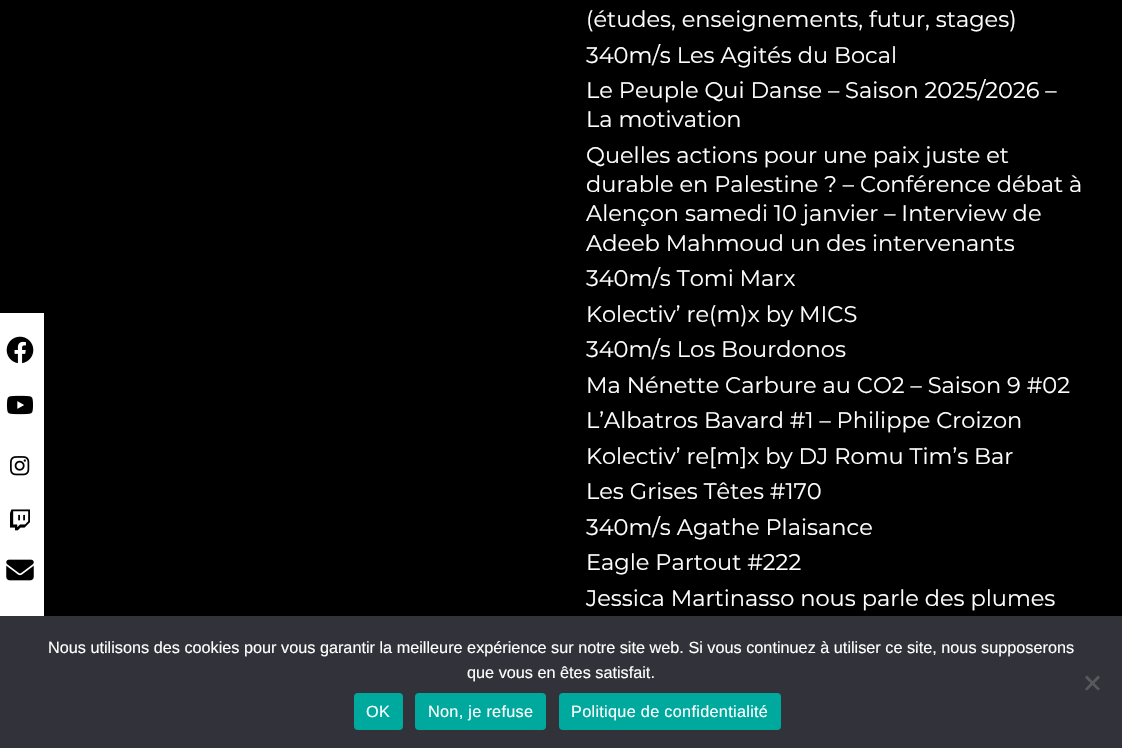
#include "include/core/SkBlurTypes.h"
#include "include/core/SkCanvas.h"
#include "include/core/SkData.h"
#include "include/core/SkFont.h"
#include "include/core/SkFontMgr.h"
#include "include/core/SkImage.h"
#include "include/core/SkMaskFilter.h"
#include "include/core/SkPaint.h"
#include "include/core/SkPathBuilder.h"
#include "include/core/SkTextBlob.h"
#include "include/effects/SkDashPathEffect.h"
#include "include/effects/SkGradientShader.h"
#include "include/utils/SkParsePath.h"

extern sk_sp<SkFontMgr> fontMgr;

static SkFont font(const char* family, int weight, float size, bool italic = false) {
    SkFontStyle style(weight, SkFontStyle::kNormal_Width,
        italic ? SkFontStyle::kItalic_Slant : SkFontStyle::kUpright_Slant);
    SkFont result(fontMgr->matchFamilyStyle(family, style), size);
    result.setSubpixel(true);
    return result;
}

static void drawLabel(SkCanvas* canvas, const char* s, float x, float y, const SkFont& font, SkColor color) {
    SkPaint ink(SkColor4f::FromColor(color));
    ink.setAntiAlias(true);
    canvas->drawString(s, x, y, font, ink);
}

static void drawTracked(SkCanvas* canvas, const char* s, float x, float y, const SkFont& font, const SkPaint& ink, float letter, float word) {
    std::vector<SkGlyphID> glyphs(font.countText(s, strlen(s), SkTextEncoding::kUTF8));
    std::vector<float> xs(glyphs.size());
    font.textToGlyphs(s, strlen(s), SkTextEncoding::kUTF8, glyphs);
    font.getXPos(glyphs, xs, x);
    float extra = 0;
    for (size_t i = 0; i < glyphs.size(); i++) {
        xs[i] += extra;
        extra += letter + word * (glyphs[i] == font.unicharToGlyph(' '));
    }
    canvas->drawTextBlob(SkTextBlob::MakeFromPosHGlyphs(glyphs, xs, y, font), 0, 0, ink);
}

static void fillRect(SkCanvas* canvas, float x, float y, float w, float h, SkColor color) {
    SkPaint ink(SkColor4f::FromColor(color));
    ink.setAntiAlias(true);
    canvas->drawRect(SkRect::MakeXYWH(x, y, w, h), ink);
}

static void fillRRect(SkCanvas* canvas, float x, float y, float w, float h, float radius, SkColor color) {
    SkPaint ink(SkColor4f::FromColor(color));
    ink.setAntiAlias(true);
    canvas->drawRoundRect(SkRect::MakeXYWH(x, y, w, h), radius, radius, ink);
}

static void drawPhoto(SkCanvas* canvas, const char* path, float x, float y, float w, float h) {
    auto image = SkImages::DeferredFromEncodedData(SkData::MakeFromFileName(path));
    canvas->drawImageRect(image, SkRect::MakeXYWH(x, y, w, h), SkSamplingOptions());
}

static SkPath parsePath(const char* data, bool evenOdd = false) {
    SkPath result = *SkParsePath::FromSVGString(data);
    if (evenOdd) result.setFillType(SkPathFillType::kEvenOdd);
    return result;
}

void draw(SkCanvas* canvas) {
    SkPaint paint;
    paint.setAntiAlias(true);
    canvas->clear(0xFF000000);
    fillRect(canvas, 0, 313, 44, 303, 0xFFFFFFFF);
    drawPhoto(canvas, "assets/img1.png", 6, 336, 28, 28);
    drawPhoto(canvas, "assets/img2.png", 6, 395, 27, 20);
    drawPhoto(canvas, "assets/img3.png", 10, 456, 20, 20);
    drawPhoto(canvas, "assets/img4.png", 10, 509, 20, 22);
    drawPhoto(canvas, "assets/img5.png", 6, 559, 28, 22);
    SkFont font1 = font("Montserrat", 400, 22.5f);
    drawLabel(canvas, "(études, enseignements, futur, stages)", 586, 27, font1, 0xFFFFFFFF);
    drawLabel(canvas, "340m/s Les Agités du Bocal", 586, 63, font1, 0xFFFFFFFF);
    drawLabel(canvas, "Le Peuple Qui Danse – Saison 2025/2026 –", 586, 98, font1, 0xFFFFFFFF);
    drawLabel(canvas, "La motivation", 586, 127, font1, 0xFFFFFFFF);
    drawLabel(canvas, "Quelles actions pour une paix juste et", 586, 163, font1, 0xFFFFFFFF);
    drawLabel(canvas, "durable en Palestine ? – Conférence débat à", 586, 192, font1, 0xFFFFFFFF);
    drawLabel(canvas, "Alençon samedi 10 janvier – Interview de", 586, 221, font1, 0xFFFFFFFF);
    drawLabel(canvas, "Adeeb Mahmoud un des intervenants", 586, 251, font1, 0xFFFFFFFF);
    drawLabel(canvas, "340m/s Tomi Marx", 586, 286, font1, 0xFFFFFFFF);
    drawLabel(canvas, "Kolectiv’ re(m)x by MICS", 586, 322, font1, 0xFFFFFFFF);
    drawLabel(canvas, "340m/s Los Bourdonos", 586, 357, font1, 0xFFFFFFFF);
    drawLabel(canvas, "Ma Nénette Carbure au CO2 – Saison 9 #02", 586, 393, font1, 0xFFFFFFFF);
    drawLabel(canvas, "L’Albatros Bavard #1 – Philippe Croizon", 586, 428, font1, 0xFFFFFFFF);
    drawLabel(canvas, "Kolectiv’ re[m]x by DJ Romu Tim’s Bar", 586, 464, font1, 0xFFFFFFFF);
    drawLabel(canvas, "Les Grises Têtes #170", 586, 499, font1, 0xFFFFFFFF);
    drawLabel(canvas, "340m/s Agathe Plaisance", 586, 535, font1, 0xFFFFFFFF);
    drawLabel(canvas, "Eagle Partout #222", 586, 570, font1, 0xFFFFFFFF);
    drawLabel(canvas, "Jessica Martinasso nous parle des plumes", 586, 606, font1, 0xFFFFFFFF);
    fillRect(canvas, 0, 616, 1122, 132, 0xFF32323A);
    SkFont font2 = font("Liberation Sans", 400, 16.25f);
    drawLabel(canvas, "Nous utilisons des cookies pour vous garantir la meilleure expérience sur notre site web. Si vous continuez à utiliser ce site, nous supposerons", 48, 653, font2, 0xFFFFFFFF);
    drawLabel(canvas, "que vous en êtes satisfait.", 467, 678, font2, 0xFFFFFFFF);
    paint.setColor(0xFF59595D);
    canvas->drawPath(parsePath("M1098 675.5L1100 677.5L1087 690.5L1085 689Z"), paint);
    canvas->drawPath(parsePath("M1085 677.5L1087 675.5L1100 689L1098 690.5Z"), paint);
    fillRRect(canvas, 354, 693, 49, 37, 4, 0xFF00A99D);
    paint.setColor(0xFFFFFFFF);
    drawTracked(canvas, "OK", 366, 717, font2, paint, 0.3f, 0);
    fillRRect(canvas, 415, 693, 131, 37, 4, 0xFF00A99D);
    drawTracked(canvas, "Non, je refuse", 428, 717, font2, paint, 0.3f, 0);
    fillRRect(canvas, 559, 693, 222, 37, 4, 0xFF00A99D);
    drawTracked(canvas, "Politique de confidentialité", 571, 717, font2, paint, 0.3f, 0);
}
